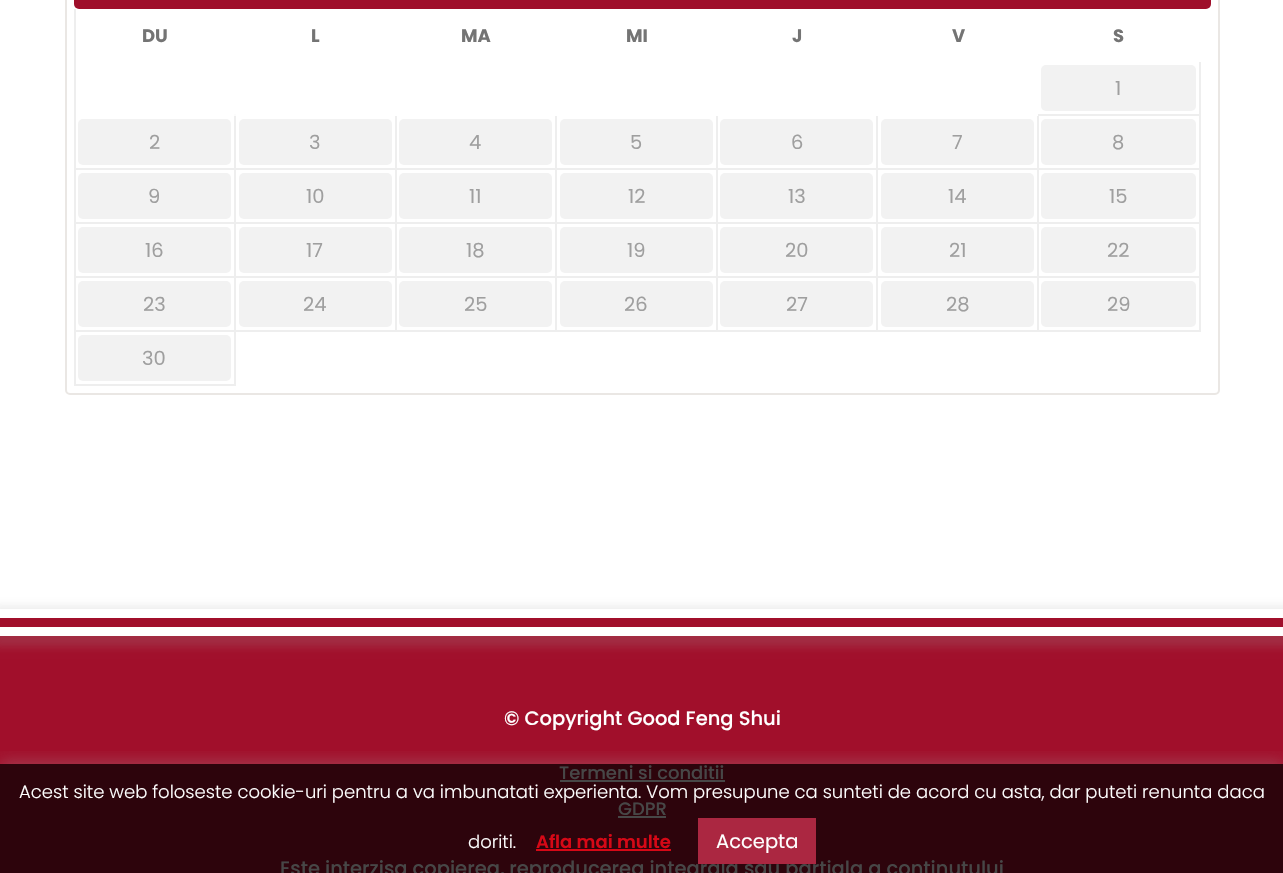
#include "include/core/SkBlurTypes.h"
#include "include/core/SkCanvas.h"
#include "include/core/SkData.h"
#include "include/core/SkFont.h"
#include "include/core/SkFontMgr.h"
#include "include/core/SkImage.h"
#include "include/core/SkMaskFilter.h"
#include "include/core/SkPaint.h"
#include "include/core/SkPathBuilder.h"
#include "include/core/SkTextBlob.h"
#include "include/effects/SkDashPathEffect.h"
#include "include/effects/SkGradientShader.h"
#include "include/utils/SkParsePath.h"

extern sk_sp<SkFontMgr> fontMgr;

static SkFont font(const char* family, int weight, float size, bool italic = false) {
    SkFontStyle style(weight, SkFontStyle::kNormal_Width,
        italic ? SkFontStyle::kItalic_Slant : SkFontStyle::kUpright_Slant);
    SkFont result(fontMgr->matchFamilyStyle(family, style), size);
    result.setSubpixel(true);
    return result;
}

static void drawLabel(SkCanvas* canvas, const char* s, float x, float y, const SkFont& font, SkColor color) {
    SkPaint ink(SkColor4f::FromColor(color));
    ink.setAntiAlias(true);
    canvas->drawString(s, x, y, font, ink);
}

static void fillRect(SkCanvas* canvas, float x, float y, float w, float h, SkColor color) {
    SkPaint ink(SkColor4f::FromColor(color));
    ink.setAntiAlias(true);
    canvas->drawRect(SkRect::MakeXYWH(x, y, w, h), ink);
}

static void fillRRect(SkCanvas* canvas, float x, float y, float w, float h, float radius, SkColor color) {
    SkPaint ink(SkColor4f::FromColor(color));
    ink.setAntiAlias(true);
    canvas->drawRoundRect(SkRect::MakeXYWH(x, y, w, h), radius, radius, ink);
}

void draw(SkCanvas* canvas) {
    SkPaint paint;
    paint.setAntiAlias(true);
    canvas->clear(0xFFFFFFFF);
    paint.setStroke(true);
    paint.setStrokeWidth(2);
    paint.setColor(0xFFEAE7E4);
    canvas->drawRoundRect(SkRect::MakeXYWH(66, -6, 1153, 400), 4, 4, paint);
    fillRRect(canvas, 74, -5, 1137, 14, 5, 0xFF9F0F2B);
    fillRect(canvas, 74, 9, 2, 377, 0xFFEEEEEE);
    SkFont font1 = font("Poppins", 700, 18);
    drawLabel(canvas, "DU", 142, 42, font1, 0xFF747474);
    drawLabel(canvas, "L", 311, 42, font1, 0xFF747474);
    drawLabel(canvas, "MA", 461, 42, font1, 0xFF747474);
    drawLabel(canvas, "MI", 626, 42, font1, 0xFF747474);
    drawLabel(canvas, "J", 792, 42, font1, 0xFF747474);
    drawLabel(canvas, "V", 952, 42, font1, 0xFF747474);
    drawLabel(canvas, "S", 1113, 42, font1, 0xFF747474);
    fillRect(canvas, 1199, 62, 2, 270, 0xFFEEEEEE);
    fillRect(canvas, 1038, 114, 162, 2, 0xFFEEEEEE);
    fillRRect(canvas, 1041, 65, 155, 46, 5, 0xFFF2F2F2);
    SkFont font2 = font("Poppins", 400, 19.5f);
    drawLabel(canvas, "1", 1115, 95, font2, 0xFF9F9F9F);
    fillRect(canvas, 234, 114, 2, 2, 0xFFFCFCFC);
    fillRect(canvas, 234, 116, 2, 270, 0xFFEEEEEE);
    fillRect(canvas, 75, 168, 161, 2, 0xFFEEEEEE);
    fillRRect(canvas, 78, 119, 153, 46, 5, 0xFFF2F2F2);
    drawLabel(canvas, "2", 149, 149, font2, 0xFF9F9F9F);
    fillRect(canvas, 395, 116, 2, 216, 0xFFEEEEEE);
    fillRect(canvas, 236, 168, 160, 2, 0xFFEEEEEE);
    fillRRect(canvas, 239, 119, 153, 46, 5, 0xFFF2F2F2);
    drawLabel(canvas, "3", 309, 149, font2, 0xFF9F9F9F);
    fillRect(canvas, 555, 116, 2, 216, 0xFFEEEEEE);
    fillRect(canvas, 396, 168, 161, 2, 0xFFEEEEEE);
    fillRRect(canvas, 399, 119, 153, 46, 5, 0xFFF2F2F2);
    drawLabel(canvas, "4", 469, 149, font2, 0xFF9F9F9F);
    fillRect(canvas, 716, 116, 2, 216, 0xFFEEEEEE);
    fillRect(canvas, 557, 168, 160, 2, 0xFFEEEEEE);
    fillRRect(canvas, 560, 119, 153, 46, 5, 0xFFF2F2F2);
    drawLabel(canvas, "5", 630, 149, font2, 0xFF9F9F9F);
    fillRect(canvas, 876, 116, 2, 216, 0xFFEEEEEE);
    fillRect(canvas, 717, 168, 161, 2, 0xFFEEEEEE);
    fillRRect(canvas, 720, 119, 153, 46, 5, 0xFFF2F2F2);
    drawLabel(canvas, "6", 791, 149, font2, 0xFF9F9F9F);
    fillRect(canvas, 1037, 116, 2, 216, 0xFFEEEEEE);
    fillRect(canvas, 878, 168, 322, 2, 0xFFEEEEEE);
    fillRRect(canvas, 881, 119, 153, 46, 5, 0xFFF2F2F2);
    drawLabel(canvas, "7", 952, 149, font2, 0xFF9F9F9F);
    fillRRect(canvas, 1041, 119, 155, 46, 5, 0xFFF2F2F2);
    drawLabel(canvas, "8", 1112, 149, font2, 0xFF9F9F9F);
    fillRect(canvas, 75, 222, 1125, 2, 0xFFEEEEEE);
    fillRRect(canvas, 78, 173, 153, 46, 5, 0xFFF2F2F2);
    drawLabel(canvas, "9", 148, 203, font2, 0xFF9F9F9F);
    fillRRect(canvas, 239, 173, 153, 46, 5, 0xFFF2F2F2);
    drawLabel(canvas, "10", 306, 203, font2, 0xFF9F9F9F);
    fillRRect(canvas, 399, 173, 153, 46, 5, 0xFFF2F2F2);
    drawLabel(canvas, "11", 469, 203, font2, 0xFF9F9F9F);
    fillRRect(canvas, 560, 173, 153, 46, 5, 0xFFF2F2F2);
    drawLabel(canvas, "12", 628, 203, font2, 0xFF9F9F9F);
    fillRRect(canvas, 720, 173, 153, 46, 5, 0xFFF2F2F2);
    drawLabel(canvas, "13", 788, 203, font2, 0xFF9F9F9F);
    fillRRect(canvas, 881, 173, 153, 46, 5, 0xFFF2F2F2);
    drawLabel(canvas, "14", 948, 203, font2, 0xFF9F9F9F);
    fillRRect(canvas, 1041, 173, 155, 46, 5, 0xFFF2F2F2);
    drawLabel(canvas, "15", 1109, 203, font2, 0xFF9F9F9F);
    fillRect(canvas, 75, 276, 1125, 2, 0xFFEEEEEE);
    fillRRect(canvas, 78, 227, 153, 46, 5, 0xFFF2F2F2);
    drawLabel(canvas, "16", 145, 257, font2, 0xFF9F9F9F);
    fillRRect(canvas, 239, 227, 153, 46, 5, 0xFFF2F2F2);
    drawLabel(canvas, "17", 306, 257, font2, 0xFF9F9F9F);
    fillRRect(canvas, 399, 227, 153, 46, 5, 0xFFF2F2F2);
    drawLabel(canvas, "18", 466, 257, font2, 0xFF9F9F9F);
    fillRRect(canvas, 560, 227, 153, 46, 5, 0xFFF2F2F2);
    drawLabel(canvas, "19", 627, 257, font2, 0xFF9F9F9F);
    fillRRect(canvas, 720, 227, 153, 46, 5, 0xFFF2F2F2);
    drawLabel(canvas, "20", 785, 257, font2, 0xFF9F9F9F);
    fillRRect(canvas, 881, 227, 153, 46, 5, 0xFFF2F2F2);
    drawLabel(canvas, "21", 949, 257, font2, 0xFF9F9F9F);
    fillRRect(canvas, 1041, 227, 155, 46, 5, 0xFFF2F2F2);
    drawLabel(canvas, "22", 1107, 257, font2, 0xFF9F9F9F);
    fillRect(canvas, 75, 330, 1125, 2, 0xFFEEEEEE);
    fillRRect(canvas, 78, 281, 153, 46, 5, 0xFFF2F2F2);
    drawLabel(canvas, "23", 143, 311, font2, 0xFF9F9F9F);
    fillRRect(canvas, 239, 281, 153, 46, 5, 0xFFF2F2F2);
    drawLabel(canvas, "24", 303, 311, font2, 0xFF9F9F9F);
    fillRRect(canvas, 399, 281, 153, 46, 5, 0xFFF2F2F2);
    drawLabel(canvas, "25", 464, 311, font2, 0xFF9F9F9F);
    fillRRect(canvas, 560, 281, 153, 46, 5, 0xFFF2F2F2);
    drawLabel(canvas, "26", 624, 311, font2, 0xFF9F9F9F);
    fillRRect(canvas, 720, 281, 153, 46, 5, 0xFFF2F2F2);
    drawLabel(canvas, "27", 786, 311, font2, 0xFF9F9F9F);
    fillRRect(canvas, 881, 281, 153, 46, 5, 0xFFF2F2F2);
    drawLabel(canvas, "28", 946, 311, font2, 0xFF9F9F9F);
    fillRRect(canvas, 1041, 281, 155, 46, 5, 0xFFF2F2F2);
    drawLabel(canvas, "29", 1107, 311, font2, 0xFF9F9F9F);
    fillRect(canvas, 75, 384, 161, 2, 0xFFEEEEEE);
    fillRRect(canvas, 78, 335, 153, 46, 5, 0xFFF2F2F2);
    drawLabel(canvas, "30", 142, 365, font2, 0xFF9F9F9F);
    fillRect(canvas, 0, 636, 1283, 128, 0xFFA10F2B);
    paint.setStroke(false);
    paint.setColor(0x30A6A6A6);
    paint.setMaskFilter(SkMaskFilter::MakeBlur(kNormal_SkBlurStyle, 4));
    canvas->drawRect(SkRect::MakeXYWH(-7, 605, 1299, 42), paint);
    paint.setMaskFilter(nullptr);
    fillRect(canvas, 0, 618, 1283, 9, 0xFFA10F2B);
    fillRect(canvas, 0, 609, 1283, 9, 0xFFFFFFFF);
    fillRect(canvas, 0, 627, 1283, 9, 0xFFFFFFFF);
    fillRect(canvas, 0, 764, 1283, 109, 0xFF2D040C);
    SkFont font3 = font("Poppins", 500, 19.5f);
    drawLabel(canvas, "© Copyright Good Feng Shui", 504, 725, font3, 0xFFFFFFFF);
    SkFont font4 = font("Poppins", 500, 18);
    drawLabel(canvas, "Termeni si conditii", 559, 779, font4, 0xFF474747);
    fillRect(canvas, 560, 780, 165, 2, 0xFF474747);
    drawLabel(canvas, "GDPR", 618, 815, font4, 0xFF474747);
    fillRect(canvas, 618, 816, 48, 2, 0xFF474747);
    drawLabel(canvas, "Este interzisa copierea, reproducerea integrala sau partiala a continutului", 280, 875, font3, 0xFF474747);
    canvas->save();
    canvas->clipRect(SkRect::MakeXYWH(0, 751, 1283, 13));
    paint.setColor(0x4DACABAB);
    paint.setMaskFilter(SkMaskFilter::MakeBlur(kNormal_SkBlurStyle, 7.5f));
    canvas->drawRect(SkRect::MakeXYWH(0, 762, 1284, 110), paint);
    paint.setMaskFilter(nullptr);
    canvas->restore();
    SkFont font5 = font("Poppins", 300, 18);
    drawLabel(canvas, "Acest site web foloseste cookie-uri pentru a va imbunatati experienta. Vom presupune ca sunteti de acord cu asta, dar puteti renunta daca", 19, 798, font5, 0xFFFFFFFF);
    drawLabel(canvas, "doriti.", 468, 848, font5, 0xFFFFFFFF);
    SkFont font6 = font("Poppins", 600, 18);
    drawLabel(canvas, "Afla mai multe", 536, 848, font6, 0xFFD60816);
    fillRect(canvas, 536, 849, 135, 2, 0xFFD60816);
    fillRect(canvas, 698, 818, 118, 46, 0xFFAB2741);
    drawLabel(canvas, "Accepta", 716, 848, font2, 0xFFFFFFFF);
}
